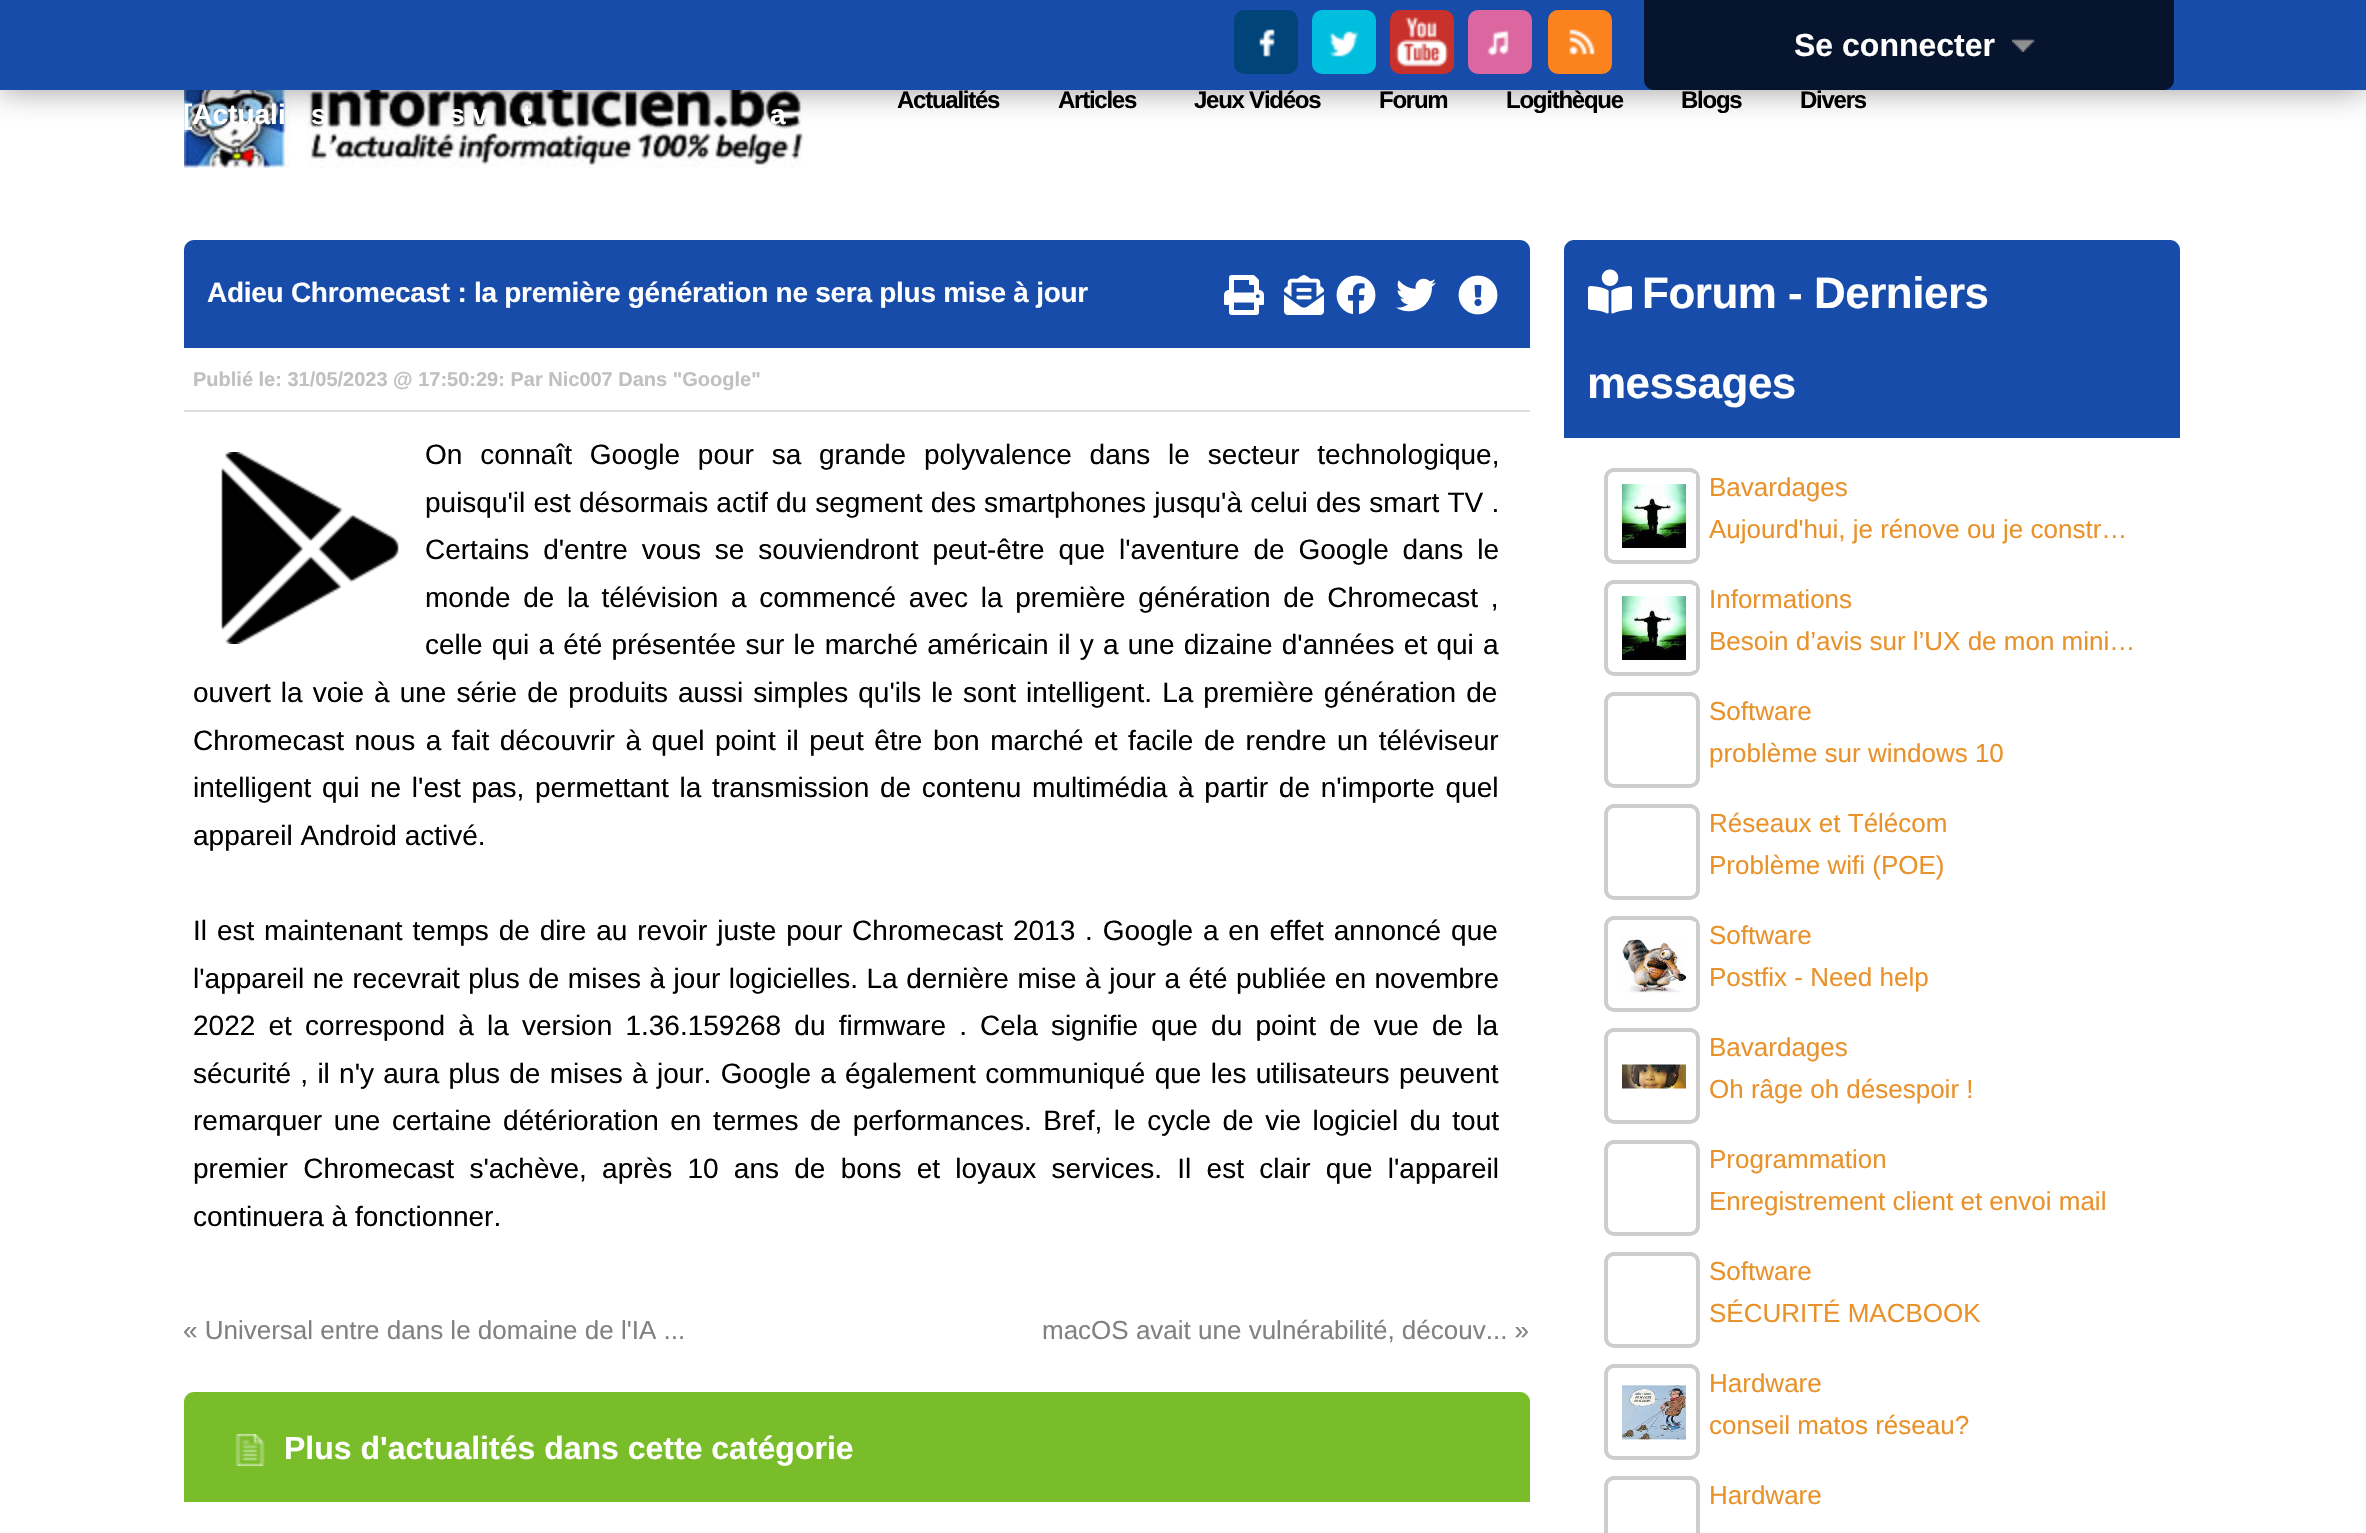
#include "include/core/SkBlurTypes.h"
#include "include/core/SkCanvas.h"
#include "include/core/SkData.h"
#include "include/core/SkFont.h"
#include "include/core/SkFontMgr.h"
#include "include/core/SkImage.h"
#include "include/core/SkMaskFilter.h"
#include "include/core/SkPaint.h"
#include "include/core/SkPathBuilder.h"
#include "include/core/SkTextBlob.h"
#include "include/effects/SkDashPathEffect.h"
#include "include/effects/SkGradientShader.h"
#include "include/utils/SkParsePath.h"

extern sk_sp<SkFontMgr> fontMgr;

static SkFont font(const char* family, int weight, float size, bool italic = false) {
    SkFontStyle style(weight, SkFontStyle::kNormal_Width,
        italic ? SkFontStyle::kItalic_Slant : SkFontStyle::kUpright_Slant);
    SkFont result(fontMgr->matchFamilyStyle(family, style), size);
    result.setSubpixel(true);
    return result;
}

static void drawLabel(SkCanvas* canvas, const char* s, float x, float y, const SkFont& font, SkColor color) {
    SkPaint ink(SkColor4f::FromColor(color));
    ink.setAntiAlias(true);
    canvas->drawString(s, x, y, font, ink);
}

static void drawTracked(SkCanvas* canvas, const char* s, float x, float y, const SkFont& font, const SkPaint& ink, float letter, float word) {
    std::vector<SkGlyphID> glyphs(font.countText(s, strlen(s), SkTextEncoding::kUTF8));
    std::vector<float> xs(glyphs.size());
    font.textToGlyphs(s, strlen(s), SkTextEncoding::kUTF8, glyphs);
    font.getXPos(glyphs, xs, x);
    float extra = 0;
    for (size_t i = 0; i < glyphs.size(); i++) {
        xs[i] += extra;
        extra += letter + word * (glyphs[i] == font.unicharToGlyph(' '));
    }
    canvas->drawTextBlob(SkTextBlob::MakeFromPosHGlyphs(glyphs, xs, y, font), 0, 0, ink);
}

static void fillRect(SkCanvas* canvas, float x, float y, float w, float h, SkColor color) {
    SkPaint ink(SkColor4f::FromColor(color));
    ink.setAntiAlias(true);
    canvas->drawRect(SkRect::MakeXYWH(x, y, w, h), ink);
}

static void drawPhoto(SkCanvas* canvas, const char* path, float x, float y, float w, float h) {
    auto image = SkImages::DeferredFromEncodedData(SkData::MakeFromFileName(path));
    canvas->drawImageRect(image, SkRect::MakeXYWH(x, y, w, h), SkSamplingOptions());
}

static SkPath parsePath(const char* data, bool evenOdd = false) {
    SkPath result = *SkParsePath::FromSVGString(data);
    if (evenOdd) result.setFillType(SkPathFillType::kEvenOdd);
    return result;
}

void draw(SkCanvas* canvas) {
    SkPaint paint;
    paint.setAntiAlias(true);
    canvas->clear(0xFFFFFFFF);
    drawPhoto(canvas, "assets/img7.png", 184, 90, 619, 78);
    paint.setColor(0x66000000);
    paint.setMaskFilter(SkMaskFilter::MakeBlur(kNormal_SkBlurStyle, 16));
    canvas->drawRect(SkRect::MakeXYWH(0, 0, 2366, 90), paint);
    paint.setMaskFilter(nullptr);
    fillRect(canvas, 0, 0, 2366, 90, 0xFF174CAA);
    drawPhoto(canvas, "assets/img1.png", 1234, 10, 64, 64);
    drawPhoto(canvas, "assets/img2.png", 1312, 10, 64, 64);
    drawPhoto(canvas, "assets/img3.png", 1390, 10, 64, 64);
    drawPhoto(canvas, "assets/img4.png", 1468, 10, 64, 64);
    drawPhoto(canvas, "assets/img5.png", 1548, 10, 64, 64);
    paint.setColor(0xFF06142D);
    canvas->drawPath(parsePath("M1644 0H2174V80C2174 85.5 2169.5 90 2164 90H1654C1648.5 90 1644 85.5 1644 80Z"), paint);
    SkFont font1 = font("Liberation Sans", 700, 32);
    drawLabel(canvas, "Se connecter", 1794, 56, font1, 0xFFFFFFFF);
    drawPhoto(canvas, "assets/img6.png", 2012, 39, 23, 13);
    SkFont font2 = font("Liberation Sans", 700, 28);
    drawLabel(canvas, "[Actuali", 183, 124, font2, 0xFFFFFFFF);
    drawLabel(canvas, "s", 311, 124, font2, 0xFFFFFFFF);
    drawLabel(canvas, "s v", 449, 124, font2, 0xFFFFFFFF);
    drawLabel(canvas, "t", 522, 124, font2, 0xFFFFFFFF);
    drawLabel(canvas, "a", 770, 124, font2, 0xFFFFFFFF);
    SkFont font3 = font("Liberation Sans", 700, 24);
    paint.setColor(0xFF000000);
    drawTracked(canvas, "Actualités", 897, 108, font3, paint, -1.25f, 0);
    drawTracked(canvas, "Articles", 1058, 108, font3, paint, -1.25f, 0);
    drawTracked(canvas, "Jeux Vidéos", 1194, 108, font3, paint, -1.25f, 0);
    drawTracked(canvas, "Forum", 1379, 108, font3, paint, -1.25f, 0);
    drawTracked(canvas, "Logithèque", 1506, 108, font3, paint, -1.25f, 0);
    drawTracked(canvas, "Blogs", 1681, 108, font3, paint, -1.25f, 0);
    drawTracked(canvas, "Divers", 1800, 108, font3, paint, -1.25f, 0);
    paint.setColor(0xFF174CAA);
    canvas->drawPath(parsePath("M194 240H1520C1525.5 240 1530 244.5 1530 250V348H184V250C184 244.5 188.5 240 194 240Z"), paint);
    paint.setColor(0xFFFFFFFF);
    drawTracked(canvas, "Adieu Chromecast : la première génération ne sera plus mise à jour", 207, 302, font2, paint, -0.28f, 0);
    drawPhoto(canvas, "assets/img8.png", 1224, 275, 40, 40);
    drawPhoto(canvas, "assets/img9.png", 1284, 275, 40, 40);
    drawPhoto(canvas, "assets/img10.png", 1336, 275, 40, 40);
    drawPhoto(canvas, "assets/img11.png", 1396, 278, 40, 34);
    drawPhoto(canvas, "assets/img12.png", 1458, 275, 40, 40);
    fillRect(canvas, 184, 410, 1346, 2, 0xFFE0E0E0);
    SkFont font4 = font("Liberation Sans", 700, 20);
    drawLabel(canvas, "Publié le: 31/05/2023 @ 17:50:29: Par Nic007 Dans \"Google\"", 193, 386, font4, 0xFFC0C0C0);
    drawPhoto(canvas, "assets/img13.png", 221, 452, 178, 192);
    SkFont font5 = font("Liberation Sans", 400, 28);
    paint.setColor(0xFF000000);
    drawTracked(canvas, "On connaît Google pour sa grande polyvalence dans le secteur technologique,", 425, 464, font5, paint, 0, 10);
    drawTracked(canvas, "puisqu'il est désormais actif du segment des smartphones jusqu'à celui des smart TV .", 425, 512, font5, paint, 0, 0.4f);
    drawTracked(canvas, "Certains d'entre vous se souviendront peut-être que l'aventure de Google dans le", 425, 559, font5, paint, 0, 6.1f);
    drawTracked(canvas, "monde de la télévision a commencé avec la première génération de Chromecast ,", 425, 607, font5, paint, 0, 4.9f);
    drawTracked(canvas, "celle qui a été présentée sur le marché américain il y a une dizaine d'années et qui a", 425, 654, font5, paint, 0, 1.5f);
    drawTracked(canvas, "ouvert la voie à une série de produits aussi simples qu'ils le sont intelligent. La première génération de", 193, 702, font5, paint, 0, 2.25f);
    drawTracked(canvas, "Chromecast nous a fait découvrir à quel point il peut être bon marché et facile de rendre un téléviseur", 193, 750, font5, paint, 0, 2.75f);
    drawTracked(canvas, "intelligent qui ne l'est pas, permettant la transmission de contenu multimédia à partir de n'importe quel", 193, 797, font5, paint, 0, 2.9f);
    drawLabel(canvas, "appareil Android activé.", 193, 845, font5, 0xFF000000);
    drawTracked(canvas, "Il est maintenant temps de dire au revoir juste pour Chromecast 2013 . Google a en effet annoncé que", 193, 940, font5, paint, 0, 2.1f);
    drawTracked(canvas, "l'appareil ne recevrait plus de mises à jour logicielles. La dernière mise à jour a été publiée en novembre", 193, 988, font5, paint, 0, 0.75f);
    drawTracked(canvas, "2022 et correspond à la version 1.36.159268 du firmware . Cela signifie que du point de vue de la", 193, 1035, font5, paint, 0, 5.4f);
    drawTracked(canvas, "sécurité , il n'y aura plus de mises à jour. Google a également communiqué que les utilisateurs peuvent", 193, 1083, font5, paint, 0, 1.5f);
    drawTracked(canvas, "remarquer une certaine détérioration en termes de performances. Bref, le cycle de vie logiciel du tout", 193, 1130, font5, paint, 0, 3.75f);
    drawTracked(canvas, "premier Chromecast s'achève, après 10 ans de bons et loyaux services. Il est clair que l'appareil", 193, 1178, font5, paint, 0, 7.5f);
    drawLabel(canvas, "continuera à fonctionner.", 193, 1226, font5, 0xFF000000);
    SkFont font6 = font("Liberation Sans", 400, 26);
    drawLabel(canvas, "« Universal entre dans le domaine de l'IA ...", 183, 1339, font6, 0xFF818181);
    drawLabel(canvas, "macOS avait une vulnérabilité, découv... »", 1042, 1339, font6, 0xFF818181);
    paint.setColor(0xFF79BD2A);
    canvas->drawPath(parsePath("M194 1392H1520C1525.5 1392 1530 1396.5 1530 1402V1502H184V1402C184 1396.5 188.5 1392 194 1392Z"), paint);
    drawPhoto(canvas, "assets/img14.png", 235, 1434, 30, 32);
    drawLabel(canvas, "Plus d'actualités dans cette catégorie", 284, 1459, font1, 0xFFFFFFFF);
    paint.setColor(0xFF174CAA);
    canvas->drawPath(parsePath("M1574 240H2170C2175.5 240 2180 244.5 2180 250V438H1564V250C1564 244.5 1568.5 240 1574 240Z"), paint);
    drawPhoto(canvas, "assets/img15.png", 1588, 269, 44, 45);
    SkFont font7 = font("Liberation Sans", 700, 44);
    paint.setColor(0xFFFFFFFF);
    drawTracked(canvas, "Forum - Derniers", 1642, 308, font7, paint, -0.5f, 0);
    drawTracked(canvas, "messages", 1587, 398, font7, paint, -0.5f, 0);
    paint.setStroke(true);
    paint.setStrokeWidth(4);
    paint.setColor(0xFFCDCDCD);
    canvas->drawRoundRect(SkRect::MakeXYWH(1606, 470, 92, 92), 8, 8, paint);
    drawPhoto(canvas, "assets/img16.png", 1622, 484, 64, 64);
    fillRect(canvas, 1694, 474, 2, 84, 0xFFFFFFFF);
    drawLabel(canvas, "Bavardages", 1709, 496, font6, 0xFFE9922B);
    drawLabel(canvas, "Aujourd'hui, je rénove ou je constr…", 1709, 538, font6, 0xFFE9922B);
    canvas->drawRoundRect(SkRect::MakeXYWH(1606, 582, 92, 92), 8, 8, paint);
    drawPhoto(canvas, "assets/img16.png", 1622, 596, 64, 64);
    fillRect(canvas, 1694, 586, 2, 84, 0xFFFFFFFF);
    drawLabel(canvas, "Informations", 1709, 608, font6, 0xFFE9922B);
    drawLabel(canvas, "Besoin d’avis sur l’UX de mon mini…", 1709, 650, font6, 0xFFE9922B);
    canvas->drawRoundRect(SkRect::MakeXYWH(1606, 694, 92, 92), 8, 8, paint);
    drawLabel(canvas, "Software", 1709, 720, font6, 0xFFE9922B);
    drawLabel(canvas, "problème sur windows 10", 1709, 762, font6, 0xFFE9922B);
    canvas->drawRoundRect(SkRect::MakeXYWH(1606, 806, 92, 92), 8, 8, paint);
    drawLabel(canvas, "Réseaux et Télécom", 1709, 832, font6, 0xFFE9922B);
    drawLabel(canvas, "Problème wifi (POE)", 1709, 874, font6, 0xFFE9922B);
    canvas->drawRoundRect(SkRect::MakeXYWH(1606, 918, 92, 92), 8, 8, paint);
    drawPhoto(canvas, "assets/img17.png", 1622, 936, 64, 57);
    fillRect(canvas, 1694, 922, 2, 84, 0xFFFFFFFF);
    drawLabel(canvas, "Software", 1709, 944, font6, 0xFFE9922B);
    drawLabel(canvas, "Postfix - Need help", 1709, 986, font6, 0xFFE9922B);
    canvas->drawRoundRect(SkRect::MakeXYWH(1606, 1030, 92, 92), 8, 8, paint);
    drawPhoto(canvas, "assets/img18.png", 1622, 1064, 64, 25);
    drawLabel(canvas, "Bavardages", 1709, 1056, font6, 0xFFE9922B);
    drawLabel(canvas, "Oh râge oh désespoir !", 1709, 1098, font6, 0xFFE9922B);
    canvas->drawRoundRect(SkRect::MakeXYWH(1606, 1142, 92, 92), 8, 8, paint);
    drawLabel(canvas, "Programmation", 1709, 1168, font6, 0xFFE9922B);
    drawLabel(canvas, "Enregistrement client et envoi mail", 1709, 1210, font6, 0xFFE9922B);
    canvas->drawRoundRect(SkRect::MakeXYWH(1606, 1254, 92, 92), 8, 8, paint);
    drawLabel(canvas, "Software", 1709, 1280, font6, 0xFFE9922B);
    drawLabel(canvas, "SÉCURITÉ MACBOOK", 1709, 1322, font6, 0xFFE9922B);
    canvas->drawRoundRect(SkRect::MakeXYWH(1606, 1366, 92, 92), 8, 8, paint);
    drawPhoto(canvas, "assets/img19.png", 1622, 1385, 64, 55);
    drawLabel(canvas, "Hardware", 1709, 1392, font6, 0xFFE9922B);
    drawLabel(canvas, "conseil matos réseau?", 1709, 1434, font6, 0xFFE9922B);
    canvas->drawRoundRect(SkRect::MakeXYWH(1606, 1478, 92, 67), 8, 8, paint);
    drawLabel(canvas, "Hardware", 1709, 1504, font6, 0xFFE9922B);
}
